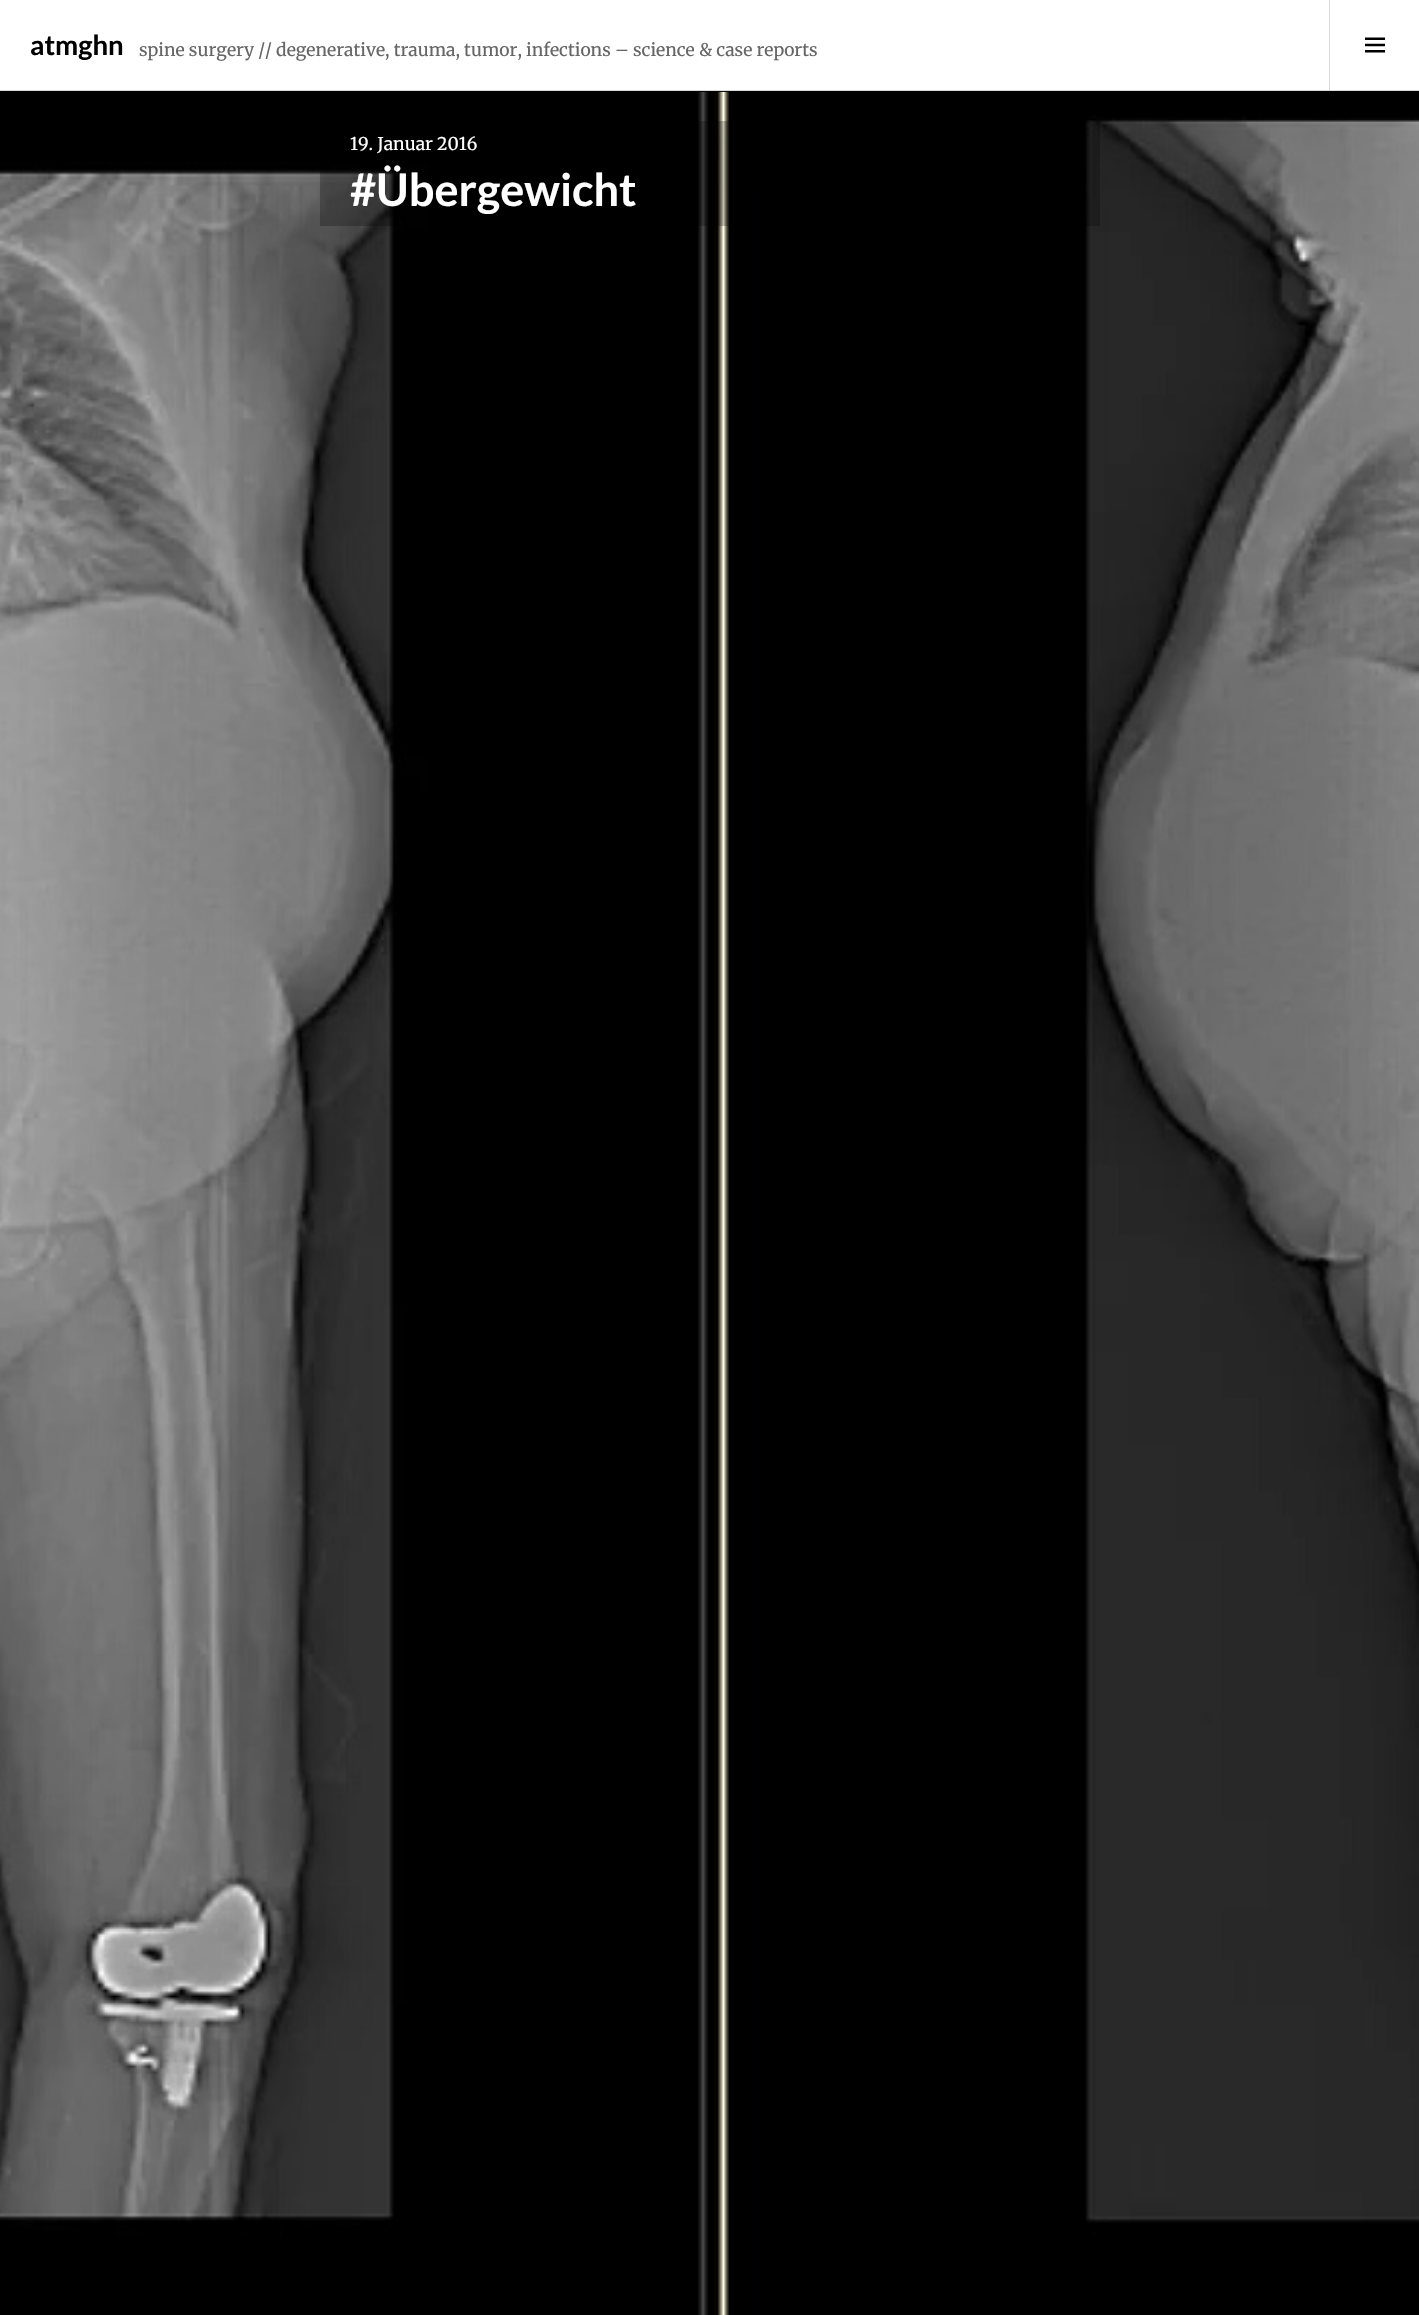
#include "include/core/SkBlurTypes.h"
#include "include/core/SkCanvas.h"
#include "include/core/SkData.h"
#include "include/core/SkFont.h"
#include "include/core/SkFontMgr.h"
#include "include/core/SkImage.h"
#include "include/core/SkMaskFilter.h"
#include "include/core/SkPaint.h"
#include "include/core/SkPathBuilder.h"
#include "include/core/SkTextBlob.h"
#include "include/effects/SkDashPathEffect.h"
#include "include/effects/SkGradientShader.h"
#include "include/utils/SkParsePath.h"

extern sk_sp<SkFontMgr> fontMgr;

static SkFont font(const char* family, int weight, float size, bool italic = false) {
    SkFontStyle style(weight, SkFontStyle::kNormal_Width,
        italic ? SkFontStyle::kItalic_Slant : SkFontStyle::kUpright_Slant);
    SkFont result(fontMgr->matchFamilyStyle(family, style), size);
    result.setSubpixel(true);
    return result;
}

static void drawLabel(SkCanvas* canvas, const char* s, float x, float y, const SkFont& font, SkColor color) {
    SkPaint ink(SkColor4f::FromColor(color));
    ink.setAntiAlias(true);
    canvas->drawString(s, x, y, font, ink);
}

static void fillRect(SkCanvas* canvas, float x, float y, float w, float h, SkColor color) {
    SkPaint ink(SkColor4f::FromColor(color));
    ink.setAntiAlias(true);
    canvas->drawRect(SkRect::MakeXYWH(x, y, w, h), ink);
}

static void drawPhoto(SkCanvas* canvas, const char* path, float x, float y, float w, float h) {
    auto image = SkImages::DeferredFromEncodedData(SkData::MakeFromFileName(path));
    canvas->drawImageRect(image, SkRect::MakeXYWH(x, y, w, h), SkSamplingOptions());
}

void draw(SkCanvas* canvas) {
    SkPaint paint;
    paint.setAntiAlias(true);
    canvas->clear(0xFFFFFFFF);
    fillRect(canvas, 0, 90, 1419, 1, 0xFFD9D9D9);
    SkFont font1 = font("Lato", 700, 27.5f);
    drawLabel(canvas, "atmghn", 30, 55, font1, 0xFF000000);
    SkFont font2 = font("Merriweather", 400, 17.5f);
    drawLabel(canvas, "spine surgery // degenerative, trauma, tumor, infections – science & case reports", 139, 56, font2, 0xFF666666);
    fillRect(canvas, 1329, 0, 1, 90, 0xFFD9D9D9);
    drawPhoto(canvas, "assets/img1.png", 1365, 37, 20, 16);
    fillRect(canvas, 0, 91, 1419, 1, 0xFF000000);
    drawPhoto(canvas, "assets/img2.png", 0, 91, 1419, 2224);
    fillRect(canvas, 320, 121, 780, 105, 0x40000000);
    drawLabel(canvas, "19. Januar 2016", 350, 150, font2, 0xFFFFFFFF);
    SkFont font3 = font("Lato", 700, 45);
    drawLabel(canvas, "#Übergewicht", 350, 206, font3, 0xFFFFFFFF);
}
